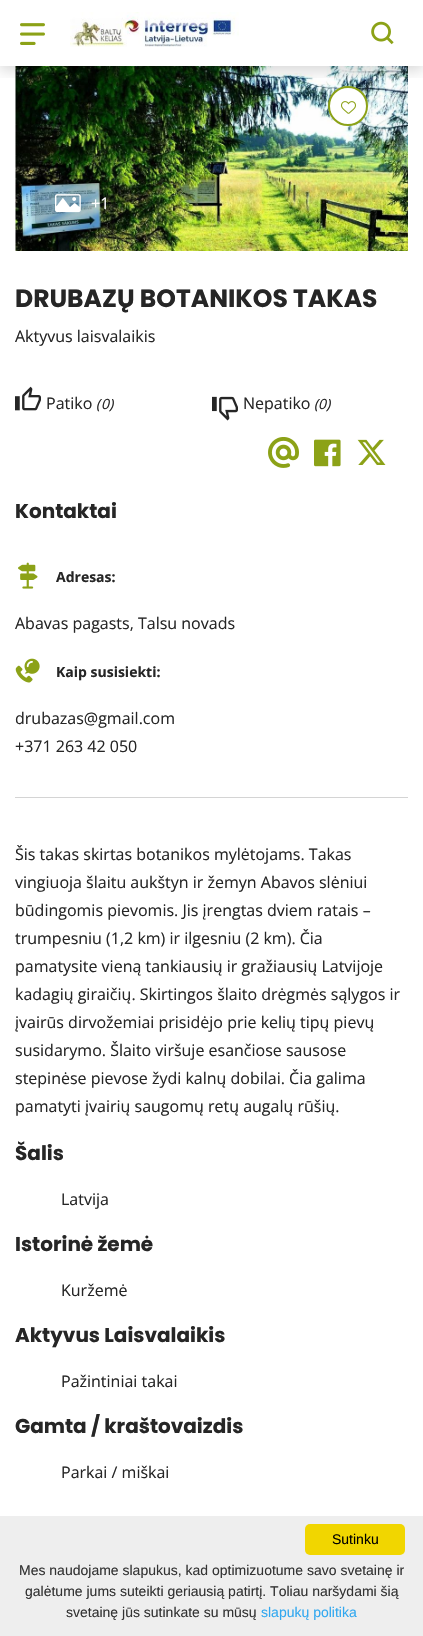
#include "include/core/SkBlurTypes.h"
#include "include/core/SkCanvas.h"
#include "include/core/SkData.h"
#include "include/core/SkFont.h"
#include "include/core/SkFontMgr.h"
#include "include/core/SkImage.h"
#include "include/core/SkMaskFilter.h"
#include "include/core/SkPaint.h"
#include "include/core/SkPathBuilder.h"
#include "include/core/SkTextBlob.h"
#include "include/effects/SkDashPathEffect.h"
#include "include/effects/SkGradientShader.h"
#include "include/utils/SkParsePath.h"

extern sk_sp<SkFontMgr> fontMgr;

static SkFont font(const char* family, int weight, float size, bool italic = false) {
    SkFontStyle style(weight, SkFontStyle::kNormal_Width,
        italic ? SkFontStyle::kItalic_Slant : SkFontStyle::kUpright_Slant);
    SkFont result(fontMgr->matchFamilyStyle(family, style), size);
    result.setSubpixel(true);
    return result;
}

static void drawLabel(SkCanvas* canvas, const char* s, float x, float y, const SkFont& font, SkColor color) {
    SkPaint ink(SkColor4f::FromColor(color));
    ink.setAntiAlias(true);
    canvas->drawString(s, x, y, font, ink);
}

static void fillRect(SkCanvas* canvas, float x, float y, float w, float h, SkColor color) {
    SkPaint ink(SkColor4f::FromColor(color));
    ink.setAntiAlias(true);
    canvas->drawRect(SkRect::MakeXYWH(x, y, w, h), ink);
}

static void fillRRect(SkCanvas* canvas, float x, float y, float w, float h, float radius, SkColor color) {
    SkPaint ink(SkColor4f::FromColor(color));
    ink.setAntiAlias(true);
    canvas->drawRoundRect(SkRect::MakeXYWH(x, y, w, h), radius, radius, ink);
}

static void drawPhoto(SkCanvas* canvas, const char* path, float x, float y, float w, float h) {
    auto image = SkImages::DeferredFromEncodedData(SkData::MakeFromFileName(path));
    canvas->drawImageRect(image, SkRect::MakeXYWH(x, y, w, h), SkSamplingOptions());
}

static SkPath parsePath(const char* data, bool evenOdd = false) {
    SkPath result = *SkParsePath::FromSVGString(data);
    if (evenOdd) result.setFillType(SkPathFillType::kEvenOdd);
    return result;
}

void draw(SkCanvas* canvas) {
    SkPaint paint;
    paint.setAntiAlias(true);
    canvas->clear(0xFFFFFFFF);
    drawPhoto(canvas, "assets/img5.png", 15, 66, 393, 185);
    paint.setColor(0xFFFFFFFF);
    canvas->drawCircle(348, 106, 19, paint);
    paint.setStroke(true);
    paint.setStrokeWidth(2);
    paint.setColor(0xFF8CA217);
    canvas->drawCircle(348, 106, 19, paint);
    canvas->save();
    canvas->clipRect(SkRect::MakeXYWH(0, 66, 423, 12));
    paint.setStroke(false);
    paint.setColor(0x29000000);
    paint.setMaskFilter(SkMaskFilter::MakeBlur(kNormal_SkBlurStyle, 7));
    canvas->drawRect(SkRect::MakeXYWH(0, 4, 423, 66), paint);
    paint.setMaskFilter(nullptr);
    canvas->restore();
    drawPhoto(canvas, "assets/img1.png", 20, 23, 25, 22);
    drawPhoto(canvas, "assets/img2.png", 70, 12, 169, 35);
    drawPhoto(canvas, "assets/img3.png", 371, 21, 23, 24);
    drawPhoto(canvas, "assets/img4.png", 341, 101, 15, 13);
    canvas->save();
    canvas->clipPath(parsePath("M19 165H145V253H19ZM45 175H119C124.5 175 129 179.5 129 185V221C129 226.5 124.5 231 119 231H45C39.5 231 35 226.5 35 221V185C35 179.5 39.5 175 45 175Z", true), true);
    paint.setMaskFilter(SkMaskFilter::MakeBlur(kNormal_SkBlurStyle, 5));
    canvas->drawRoundRect(SkRect::MakeXYWH(35, 181, 94, 56), 10, 10, paint);
    paint.setMaskFilter(nullptr);
    canvas->restore();
    fillRRect(canvas, 35, 175, 94, 56, 10, 0x33000000);
    drawPhoto(canvas, "assets/img6.png", 55, 194, 26, 19);
    SkFont font1 = font("Open Sans", 400, 16);
    drawLabel(canvas, "+1", 91, 209, font1, 0xFFFFFFFF);
    SkFont font2 = font("Poppins", 700, 25);
    drawLabel(canvas, "DRUBAZŲ BOTANIKOS TAKAS", 15, 307, font2, 0xFF262626);
    drawLabel(canvas, "Aktyvus laisvalaikis", 15, 342, font1, 0xFF262626);
    drawPhoto(canvas, "assets/img7.png", 15, 386, 26, 25);
    drawLabel(canvas, "Patiko", 46, 409, font1, 0xFF262626);
    SkFont font3 = font("Open Sans", 400, 14, true);
    drawLabel(canvas, "(", 96, 409, font3, 0xFF262626);
    drawLabel(canvas, ")", 109, 409, font3, 0xFF262626);
    drawLabel(canvas, "0", 101, 409, font3, 0xFF262626);
    drawPhoto(canvas, "assets/img8.png", 212, 396, 26, 25);
    drawLabel(canvas, "Nepatiko", 243, 409, font1, 0xFF262626);
    drawLabel(canvas, "(", 314, 409, font3, 0xFF262626);
    drawLabel(canvas, ")", 326, 409, font3, 0xFF262626);
    drawLabel(canvas, "0", 318, 409, font3, 0xFF262626);
    drawPhoto(canvas, "assets/img9.png", 268, 437, 31, 31);
    drawPhoto(canvas, "assets/img10.png", 314, 439, 27, 28);
    drawPhoto(canvas, "assets/img11.png", 357, 439, 29, 26);
    SkFont font4 = font("Poppins", 700, 20);
    drawLabel(canvas, "Kontaktai", 15, 518, font4, 0xFF262626);
    drawPhoto(canvas, "assets/img12.png", 18, 562, 20, 27);
    SkFont font5 = font("Open Sans", 700, 14);
    drawLabel(canvas, "Adresas:", 56, 582, font5, 0xFF262626);
    drawLabel(canvas, "Abavas pagasts, Talsu novads", 15, 629, font1, 0xFF262626);
    drawPhoto(canvas, "assets/img13.png", 15, 658, 25, 25);
    drawLabel(canvas, "Kaip susisiekti:", 56, 677, font5, 0xFF262626);
    drawLabel(canvas, "drubazas@gmail.com", 15, 724, font1, 0xFF262626);
    drawLabel(canvas, "+371 263 42 050", 15, 752, font1, 0xFF262626);
    fillRect(canvas, 15, 797, 393, 1, 0xFFD4D4D4);
    drawLabel(canvas, "Šis takas skirtas botanikos mylėtojams. Takas", 15, 860, font1, 0xFF262626);
    drawLabel(canvas, "vingiuoja šlaitu aukštyn ir žemyn Abavos slėniui", 15, 888, font1, 0xFF262626);
    drawLabel(canvas, "būdingomis pievomis. Jis įrengtas dviem ratais –", 15, 916, font1, 0xFF262626);
    drawLabel(canvas, "trumpesniu (1,2 km) ir ilgesniu (2 km). Čia", 15, 944, font1, 0xFF262626);
    drawLabel(canvas, "pamatysite vieną tankiausių ir gražiausių Latvijoje", 15, 972, font1, 0xFF262626);
    drawLabel(canvas, "kadagių giraičių. Skirtingos šlaito drėgmės sąlygos ir", 15, 1000, font1, 0xFF262626);
    drawLabel(canvas, "įvairūs dirvožemiai prisidėjo prie kelių tipų pievų", 15, 1028, font1, 0xFF262626);
    drawLabel(canvas, "susidarymo. Šlaito viršuje esančiose sausose", 15, 1056, font1, 0xFF262626);
    drawLabel(canvas, "stepinėse pievose žydi kalnų dobilai. Čia galima", 15, 1084, font1, 0xFF262626);
    drawLabel(canvas, "pamatyti įvairių saugomų retų augalų rūšių.", 15, 1112, font1, 0xFF262626);
    drawLabel(canvas, "Šalis", 15, 1160, font4, 0xFF262626);
    drawLabel(canvas, "Latvija", 61, 1205, font1, 0xFF262626);
    drawLabel(canvas, "Istorinė žemė", 15, 1251, font4, 0xFF262626);
    drawLabel(canvas, "Kuržemė", 61, 1296, font1, 0xFF262626);
    drawLabel(canvas, "Aktyvus Laisvalaikis", 15, 1342, font4, 0xFF262626);
    drawLabel(canvas, "Pažintiniai takai", 61, 1387, font1, 0xFF262626);
    drawLabel(canvas, "Gamta / kraštovaizdis", 15, 1433, font4, 0xFF262626);
    drawLabel(canvas, "Parkai / miškai", 61, 1478, font1, 0xFF262626);
    fillRect(canvas, 0, 1516, 423, 120, 0xFFEEEEEE);
    fillRRect(canvas, 305, 1524, 100, 31, 5, 0xFFF1D600);
    SkFont font6 = font("Liberation Sans", 400, 14);
    drawLabel(canvas, "Sutinku", 332, 1544, font6, 0xFF000000);
    drawLabel(canvas, "Mes naudojame slapukus, kad optimizuotume savo svetainę ir", 19, 1575, font6, 0xFF333333);
    drawLabel(canvas, "galėtume jums suteikti geriausią patirtį. Toliau naršydami šią", 25, 1596, font6, 0xFF333333);
    drawLabel(canvas, "svetainę jūs sutinkate su mūsų", 66, 1617, font6, 0xFF333333);
    drawLabel(canvas, "slapukų politika", 261, 1617, font6, 0xFF31A8F0);
}
